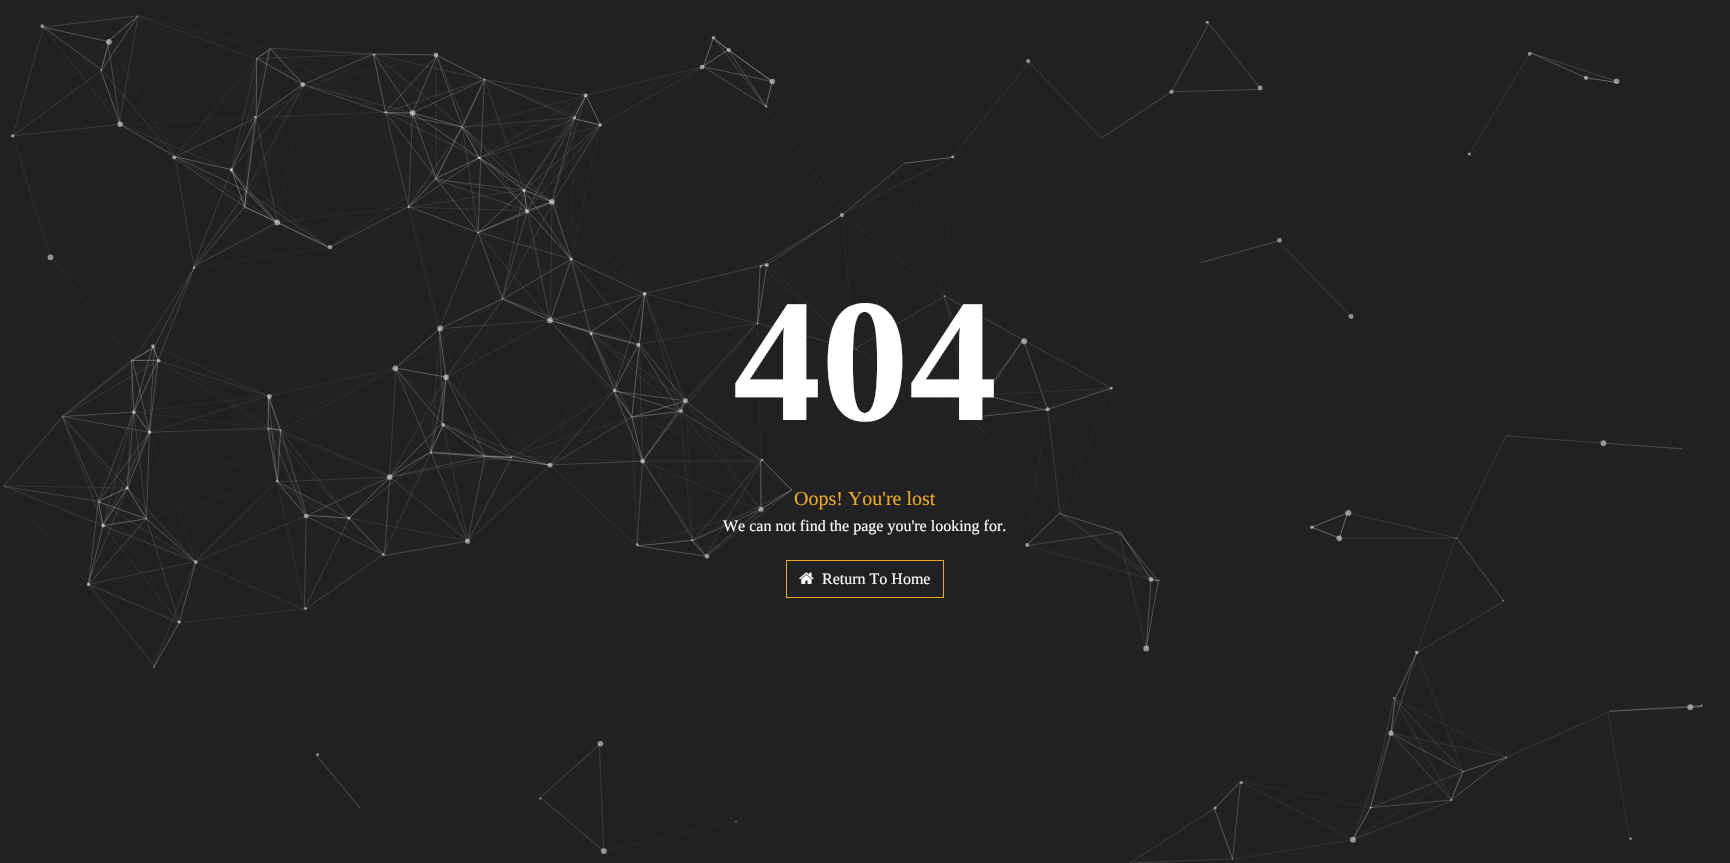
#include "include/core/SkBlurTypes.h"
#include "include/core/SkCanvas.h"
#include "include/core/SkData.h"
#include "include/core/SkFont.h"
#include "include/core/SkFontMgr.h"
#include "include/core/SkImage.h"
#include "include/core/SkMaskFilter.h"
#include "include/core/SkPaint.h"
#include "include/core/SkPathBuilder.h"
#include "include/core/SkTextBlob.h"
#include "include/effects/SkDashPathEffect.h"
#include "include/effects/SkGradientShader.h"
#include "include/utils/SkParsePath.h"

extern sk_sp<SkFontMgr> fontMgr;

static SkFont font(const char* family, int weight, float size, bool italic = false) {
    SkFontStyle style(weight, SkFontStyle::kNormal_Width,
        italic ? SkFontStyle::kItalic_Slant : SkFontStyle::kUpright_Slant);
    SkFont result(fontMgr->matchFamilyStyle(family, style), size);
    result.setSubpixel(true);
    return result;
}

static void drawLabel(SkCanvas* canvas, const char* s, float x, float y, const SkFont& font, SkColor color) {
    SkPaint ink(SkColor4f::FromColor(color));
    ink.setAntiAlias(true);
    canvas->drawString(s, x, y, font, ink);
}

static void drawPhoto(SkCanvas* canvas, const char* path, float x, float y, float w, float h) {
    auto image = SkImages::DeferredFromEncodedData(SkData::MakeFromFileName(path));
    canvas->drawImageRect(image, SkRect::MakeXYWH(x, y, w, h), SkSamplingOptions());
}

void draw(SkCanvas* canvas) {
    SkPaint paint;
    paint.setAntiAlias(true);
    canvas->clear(0xFF212124);
    drawPhoto(canvas, "assets/img1.png", 3, 15, 1700, 848);
    SkFont font1 = font("Liberation Serif", 700, 176);
    drawLabel(canvas, "404", 733, 420, font1, 0xFFFFFFFF);
    SkFont font2 = font("Liberation Serif", 400, 20);
    drawLabel(canvas, "Oops! You're lost", 794, 505, font2, 0xFFEFA928);
    SkFont font3 = font("Liberation Serif", 400, 16);
    drawLabel(canvas, "We can not find the page you're looking for.", 723, 531, font3, 0xFFFFFFFF);
    paint.setStroke(true);
    paint.setStrokeWidth(1);
    paint.setColor(0xFFEFA928);
    canvas->drawRect(SkRect::MakeXYWH(786.5f, 560.5f, 157, 37), paint);
    drawPhoto(canvas, "assets/img2.png", 799, 572, 15, 12);
    drawLabel(canvas, "Return To Home", 822, 584, font3, 0xFFFFFFFF);
}
